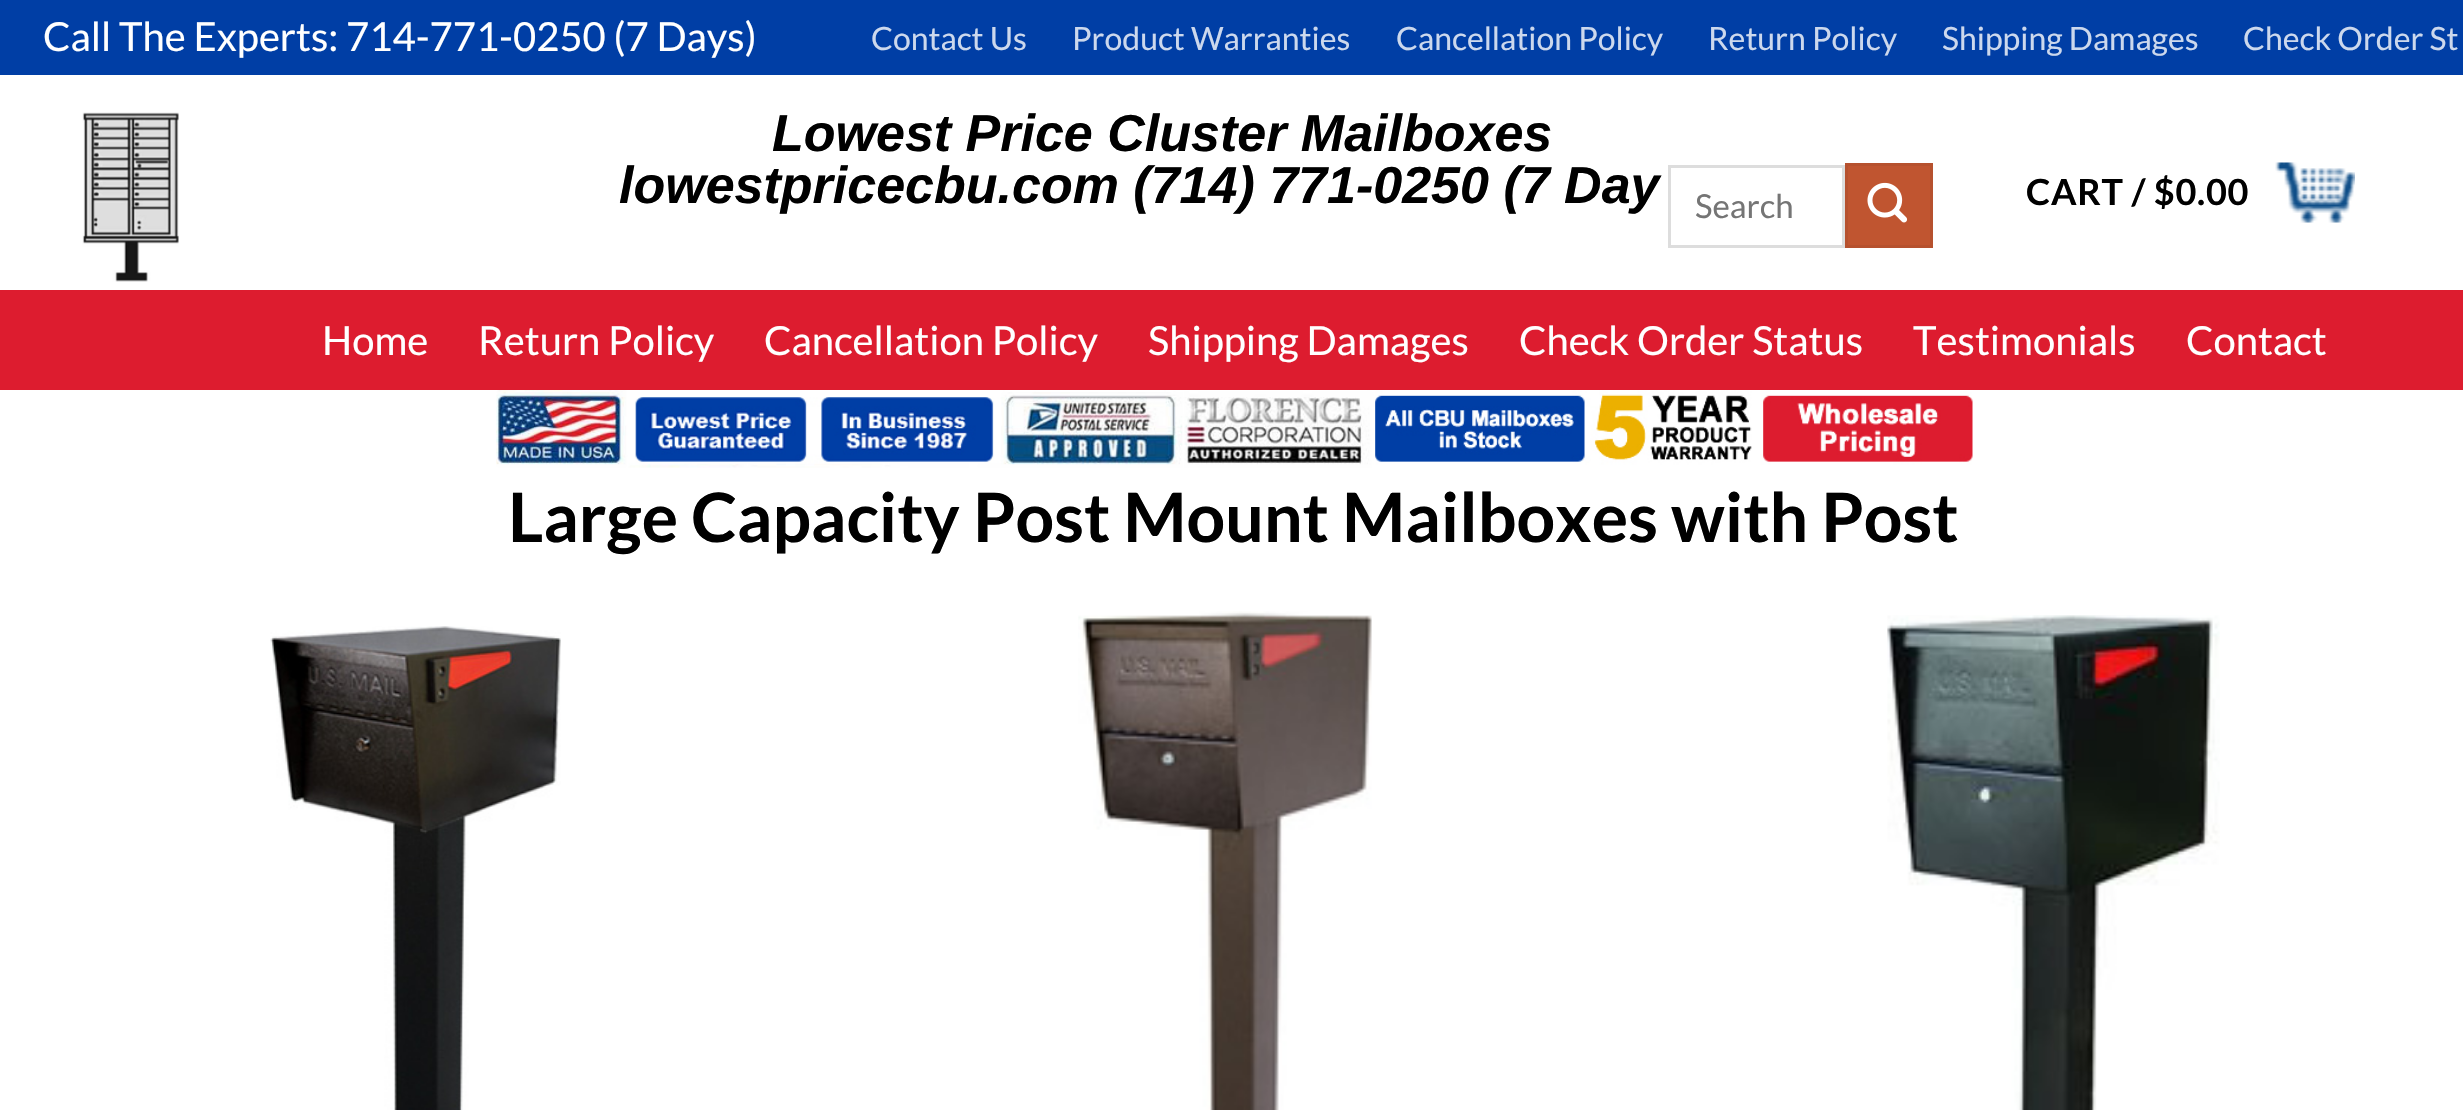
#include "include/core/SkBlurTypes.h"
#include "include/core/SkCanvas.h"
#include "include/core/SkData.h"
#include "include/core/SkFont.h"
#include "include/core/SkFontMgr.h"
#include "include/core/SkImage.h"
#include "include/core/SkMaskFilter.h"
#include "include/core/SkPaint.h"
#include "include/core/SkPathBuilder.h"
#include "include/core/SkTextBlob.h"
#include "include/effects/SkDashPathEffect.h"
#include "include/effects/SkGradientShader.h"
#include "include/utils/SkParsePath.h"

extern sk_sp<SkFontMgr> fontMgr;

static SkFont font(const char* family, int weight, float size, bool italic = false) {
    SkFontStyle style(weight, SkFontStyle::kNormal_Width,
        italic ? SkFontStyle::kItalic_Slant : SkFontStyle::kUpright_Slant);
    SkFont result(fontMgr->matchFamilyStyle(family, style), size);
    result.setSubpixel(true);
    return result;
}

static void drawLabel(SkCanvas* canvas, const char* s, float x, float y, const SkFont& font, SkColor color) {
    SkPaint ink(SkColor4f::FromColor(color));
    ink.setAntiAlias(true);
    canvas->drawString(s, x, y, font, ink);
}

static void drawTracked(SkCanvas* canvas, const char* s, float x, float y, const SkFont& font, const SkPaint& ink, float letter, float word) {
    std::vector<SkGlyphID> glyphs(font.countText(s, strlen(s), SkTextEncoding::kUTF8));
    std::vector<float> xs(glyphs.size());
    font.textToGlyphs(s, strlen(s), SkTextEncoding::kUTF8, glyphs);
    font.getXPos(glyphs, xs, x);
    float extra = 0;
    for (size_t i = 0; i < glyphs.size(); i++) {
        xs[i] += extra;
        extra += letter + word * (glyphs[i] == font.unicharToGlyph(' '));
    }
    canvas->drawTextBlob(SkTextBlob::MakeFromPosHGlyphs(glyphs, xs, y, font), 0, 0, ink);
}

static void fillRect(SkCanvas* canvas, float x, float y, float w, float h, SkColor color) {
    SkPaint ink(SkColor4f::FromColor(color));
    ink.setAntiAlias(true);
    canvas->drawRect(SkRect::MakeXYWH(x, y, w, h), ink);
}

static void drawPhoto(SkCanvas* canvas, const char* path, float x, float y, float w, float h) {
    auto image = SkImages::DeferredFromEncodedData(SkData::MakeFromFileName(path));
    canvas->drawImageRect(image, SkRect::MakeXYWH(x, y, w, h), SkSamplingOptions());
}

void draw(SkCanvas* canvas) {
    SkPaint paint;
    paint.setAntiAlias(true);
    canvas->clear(0xFFFFFFFF);
    fillRect(canvas, 0, 0, 2463, 75, 0xFF003EA5);
    SkFont font1 = font("Lato", 400, 40);
    drawLabel(canvas, "Call The Experts: 714-771-0250 (7 Days)", 43, 51, font1, 0xFFFFFFFF);
    SkFont font2 = font("Lato", 400, 32);
    drawLabel(canvas, "Contact Us", 871, 50, font2, 0xFFCCD8ED);
    drawLabel(canvas, "Product Warranties", 1072, 50, font2, 0xFFCCD8ED);
    drawLabel(canvas, "Cancellation Policy", 1396, 50, font2, 0xFFCCD8ED);
    drawLabel(canvas, "Return Policy", 1708, 50, font2, 0xFFCCD8ED);
    drawLabel(canvas, "Shipping Damages", 1942, 50, font2, 0xFFCCD8ED);
    drawLabel(canvas, "Check Order St", 2243, 50, font2, 0xFFCCD8ED);
    drawPhoto(canvas, "assets/img1.png", 82, 112, 97, 170);
    SkFont font3 = font("Liberation Sans", 700, 52, true);
    drawLabel(canvas, "Lowest Price Cluster Mailboxes", 772, 151, font3, 0xFF000000);
    drawLabel(canvas, "lowestpricecbu.com (714) 771-0250 (7 Day", 619, 203, font3, 0xFF000000);
    paint.setStroke(true);
    paint.setStrokeWidth(3);
    paint.setColor(0xFFDDDDDD);
    canvas->drawRect(SkRect::MakeXYWH(1669.5f, 166.5f, 174, 80), paint);
    SkFont font4 = font("Lato", 400, 33);
    drawLabel(canvas, "Search", 1695, 218, font4, 0xFF757575);
    paint.setStroke(false);
    paint.setColor(0xFFC05530);
    canvas->drawRect(SkRect::MakeXYWH(1846.5f, 164.5f, 85, 82), paint);
    paint.setStroke(true);
    paint.setColor(0xFFB6512E);
    canvas->drawRect(SkRect::MakeXYWH(1846.5f, 164.5f, 85, 82), paint);
    drawPhoto(canvas, "assets/img2.png", 1867, 182, 41, 41);
    SkFont font5 = font("Lato", 700, 36);
    paint.setStroke(false);
    paint.setColor(0xFF000000);
    drawTracked(canvas, "CART / $0.00", 2026, 205, font5, paint, 0.75f, 0);
    drawPhoto(canvas, "assets/img3.png", 2275, 162, 80, 61);
    fillRect(canvas, 0, 290, 2463, 100, 0xFFDD1C2F);
    drawLabel(canvas, "Home", 322, 355, font1, 0xFFFFFFFF);
    drawLabel(canvas, "Return Policy", 478, 355, font1, 0xFFFFFFFF);
    drawLabel(canvas, "Cancellation Policy", 764, 355, font1, 0xFFFFFFFF);
    drawLabel(canvas, "Shipping Damages", 1148, 355, font1, 0xFFFFFFFF);
    drawLabel(canvas, "Check Order Status", 1519, 355, font1, 0xFFFFFFFF);
    drawLabel(canvas, "Testimonials", 1913, 355, font1, 0xFFFFFFFF);
    drawLabel(canvas, "Contact", 2186, 355, font1, 0xFFFFFFFF);
    drawPhoto(canvas, "assets/img4.png", 496, 390, 1477, 78);
    SkFont font6 = font("Lato", 700, 68);
    drawLabel(canvas, "Large Capacity Post Mount Mailboxes with Post", 508, 542, font6, 0xFF000000);
    drawPhoto(canvas, "assets/img5.png", 270, 626, 291, 484);
    drawPhoto(canvas, "assets/img6.png", 1078, 611, 294, 499);
    drawPhoto(canvas, "assets/img7.png", 1887, 615, 333, 495);
}
